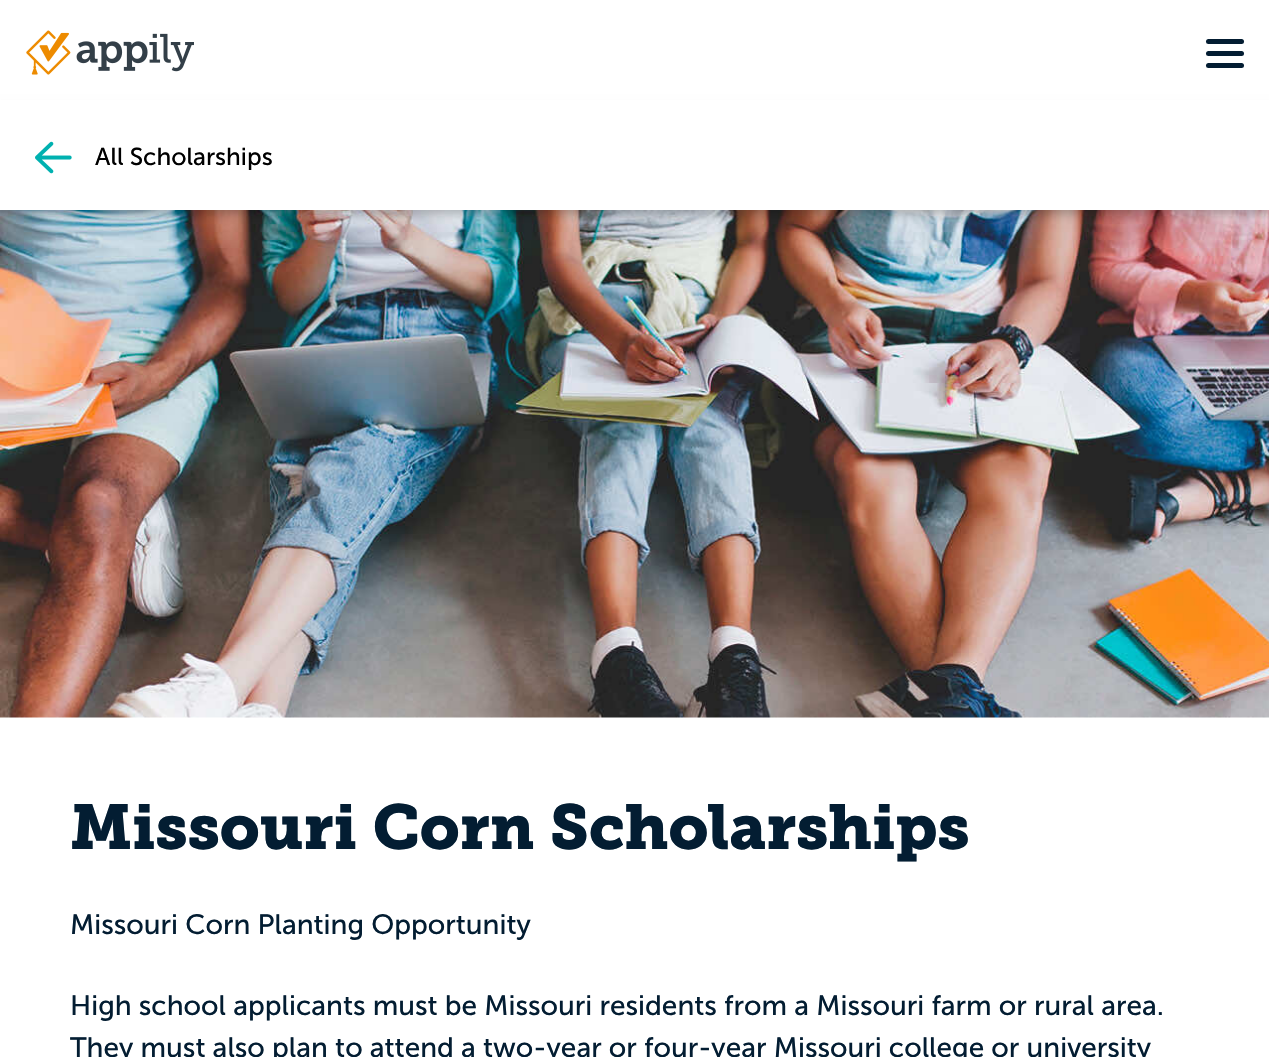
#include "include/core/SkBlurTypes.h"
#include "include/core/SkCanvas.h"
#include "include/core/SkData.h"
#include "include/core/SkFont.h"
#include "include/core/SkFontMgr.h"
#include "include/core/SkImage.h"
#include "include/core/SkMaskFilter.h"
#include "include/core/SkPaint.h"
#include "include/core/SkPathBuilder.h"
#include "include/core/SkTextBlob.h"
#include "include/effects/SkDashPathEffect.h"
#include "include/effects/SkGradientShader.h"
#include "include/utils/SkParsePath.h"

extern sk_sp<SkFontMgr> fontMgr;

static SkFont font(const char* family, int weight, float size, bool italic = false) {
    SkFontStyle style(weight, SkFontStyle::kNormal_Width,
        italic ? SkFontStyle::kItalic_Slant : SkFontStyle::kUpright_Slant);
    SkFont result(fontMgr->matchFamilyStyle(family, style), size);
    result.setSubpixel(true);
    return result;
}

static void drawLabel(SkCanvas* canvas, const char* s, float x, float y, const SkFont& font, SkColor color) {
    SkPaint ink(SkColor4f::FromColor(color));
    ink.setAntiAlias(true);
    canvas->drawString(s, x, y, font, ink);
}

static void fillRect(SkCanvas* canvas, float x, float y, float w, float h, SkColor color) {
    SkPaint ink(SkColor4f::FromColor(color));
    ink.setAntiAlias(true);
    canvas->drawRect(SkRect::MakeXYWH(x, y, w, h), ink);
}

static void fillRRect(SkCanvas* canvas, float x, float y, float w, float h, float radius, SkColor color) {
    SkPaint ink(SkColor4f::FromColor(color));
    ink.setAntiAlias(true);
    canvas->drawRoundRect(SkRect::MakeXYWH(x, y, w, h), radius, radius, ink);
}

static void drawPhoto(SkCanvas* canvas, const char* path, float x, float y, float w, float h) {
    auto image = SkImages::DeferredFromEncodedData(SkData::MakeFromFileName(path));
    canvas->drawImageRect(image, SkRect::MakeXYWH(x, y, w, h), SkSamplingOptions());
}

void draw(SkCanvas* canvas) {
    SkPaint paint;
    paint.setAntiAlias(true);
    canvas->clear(0xFFFFFFFF);
    drawPhoto(canvas, "assets/img1.png", 26, 30, 168, 45);
    fillRRect(canvas, 1206, 51, 38, 5, 2.5f, 0xFF031D32);
    fillRRect(canvas, 1206, 39, 38, 5, 2.5f, 0xFF031D32);
    fillRRect(canvas, 1206, 63, 38, 5, 2.5f, 0xFF031D32);
    drawPhoto(canvas, "assets/img3.png", 0, 210, 1269, 508);
    paint.setColor(0x40000000);
    paint.setMaskFilter(SkMaskFilter::MakeBlur(kNormal_SkBlurStyle, 5));
    canvas->drawRect(SkRect::MakeXYWH(0, 109, 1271, 105), paint);
    paint.setMaskFilter(nullptr);
    fillRect(canvas, 0, 100, 1269, 110, 0xFFFFFFFF);
    drawPhoto(canvas, "assets/img2.png", 35, 141, 37, 33);
    SkFont font1 = font("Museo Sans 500", 400, 24.5f);
    drawLabel(canvas, "All Scholarships", 95, 165, font1, 0xFF000000);
    SkFont font2 = font("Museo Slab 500", 700, 63);
    drawLabel(canvas, "Missouri Corn Scholarships", 70, 849, font2, 0xFF031D32);
    SkFont font3 = font("Museo Sans 500", 400, 28);
    drawLabel(canvas, "Missouri Corn Planting Opportunity", 70, 934, font3, 0xFF031D32);
    drawLabel(canvas, "High school applicants must be Missouri residents from a Missouri farm or rural area.", 70, 1015, font3, 0xFF031D32);
    drawLabel(canvas, "They must also plan to attend a two-year or four-year Missouri college or university", 70, 1057, font3, 0xFF031D32);
}
